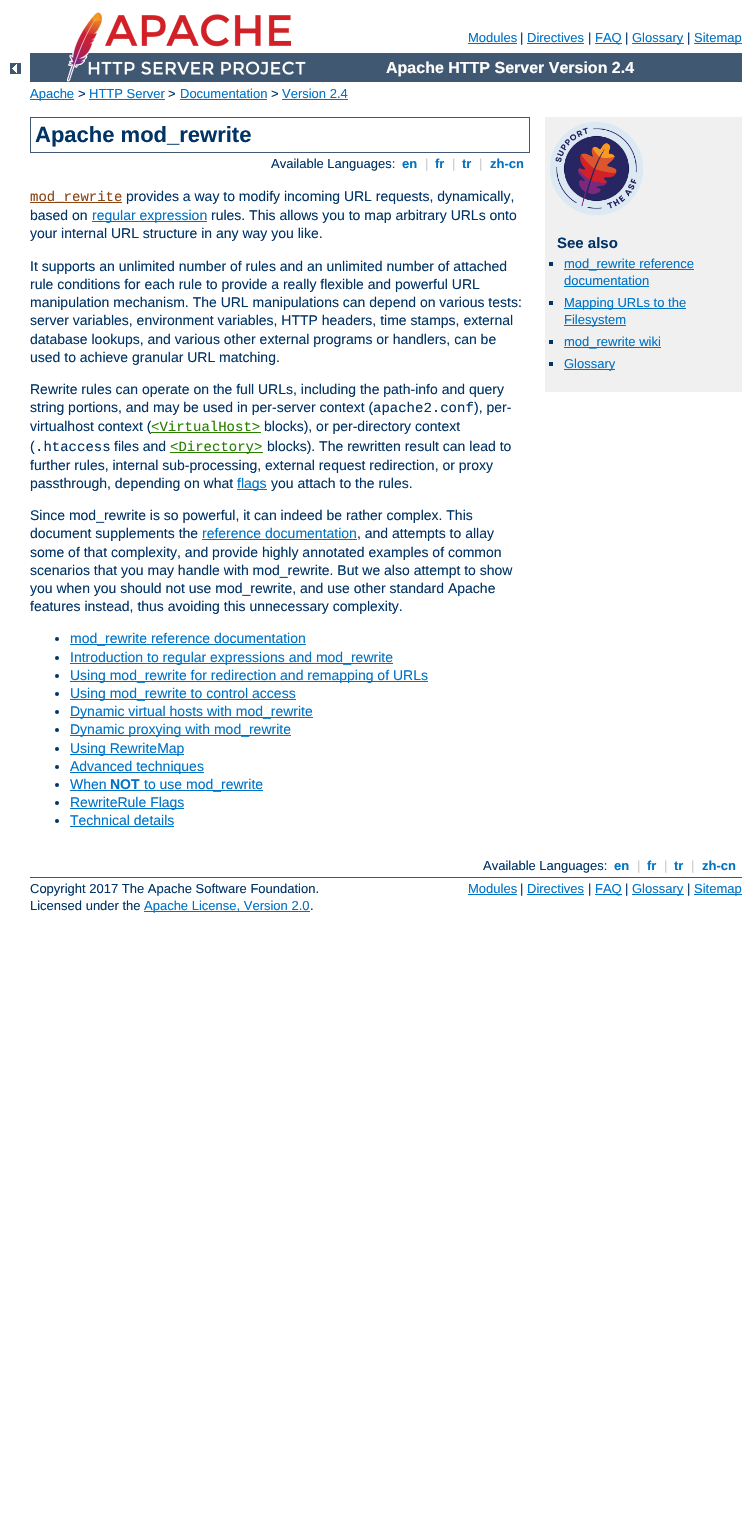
#include "include/core/SkBlurTypes.h"
#include "include/core/SkCanvas.h"
#include "include/core/SkData.h"
#include "include/core/SkFont.h"
#include "include/core/SkFontMgr.h"
#include "include/core/SkImage.h"
#include "include/core/SkMaskFilter.h"
#include "include/core/SkPaint.h"
#include "include/core/SkPathBuilder.h"
#include "include/core/SkTextBlob.h"
#include "include/effects/SkDashPathEffect.h"
#include "include/effects/SkGradientShader.h"
#include "include/utils/SkParsePath.h"

extern sk_sp<SkFontMgr> fontMgr;

static SkFont font(const char* family, int weight, float size, bool italic = false) {
    SkFontStyle style(weight, SkFontStyle::kNormal_Width,
        italic ? SkFontStyle::kItalic_Slant : SkFontStyle::kUpright_Slant);
    SkFont result(fontMgr->matchFamilyStyle(family, style), size);
    result.setSubpixel(true);
    return result;
}

static void drawLabel(SkCanvas* canvas, const char* s, float x, float y, const SkFont& font, SkColor color) {
    SkPaint ink(SkColor4f::FromColor(color));
    ink.setAntiAlias(true);
    canvas->drawString(s, x, y, font, ink);
}

static void fillRect(SkCanvas* canvas, float x, float y, float w, float h, SkColor color) {
    SkPaint ink(SkColor4f::FromColor(color));
    ink.setAntiAlias(true);
    canvas->drawRect(SkRect::MakeXYWH(x, y, w, h), ink);
}

static void drawPhoto(SkCanvas* canvas, const char* path, float x, float y, float w, float h) {
    auto image = SkImages::DeferredFromEncodedData(SkData::MakeFromFileName(path));
    canvas->drawImageRect(image, SkRect::MakeXYWH(x, y, w, h), SkSamplingOptions());
}

void draw(SkCanvas* canvas) {
    SkPaint paint;
    paint.setAntiAlias(true);
    canvas->clear(0xFFFFFFFF);
    drawPhoto(canvas, "assets/img1.png", 10, 63, 11, 11);
    fillRect(canvas, 30, 53, 712, 29, 0xFF405871);
    drawPhoto(canvas, "assets/img2.png", 67, 12, 239, 70);
    SkFont font1 = font("Liberation Sans", 400, 13);
    drawLabel(canvas, "Modules", 468, 42, font1, 0xFF0073C7);
    fillRect(canvas, 468, 43, 49, 1, 0xFF0073C7);
    drawLabel(canvas, "|", 520, 42, font1, 0xFF003366);
    drawLabel(canvas, "Directives", 527, 42, font1, 0xFF0073C7);
    fillRect(canvas, 527, 43, 57, 1, 0xFF0073C7);
    drawLabel(canvas, "|", 588, 42, font1, 0xFF003366);
    fillRect(canvas, 595, 43, 27, 1, 0xFF0073C7);
    drawLabel(canvas, "FAQ", 595, 42, font1, 0xFF0073C7);
    drawLabel(canvas, "|", 625, 42, font1, 0xFF003366);
    fillRect(canvas, 632, 43, 52, 1, 0xFF0073C7);
    drawLabel(canvas, "Glossary", 632, 42, font1, 0xFF0073C7);
    drawLabel(canvas, "|", 687, 42, font1, 0xFF003366);
    fillRect(canvas, 694, 43, 48, 1, 0xFF0073C7);
    drawLabel(canvas, "Sitemap", 694, 42, font1, 0xFF0073C7);
    SkFont font2 = font("Liberation Sans", 700, 16);
    drawLabel(canvas, "Apache HTTP Server Version 2.4", 386, 73, font2, 0xFFFFFFFF);
    fillRect(canvas, 30, 99, 44, 1, 0xFF0073C7);
    drawLabel(canvas, "Apache", 30, 98, font1, 0xFF0073C7);
    drawLabel(canvas, ">", 78, 98, font1, 0xFF003366);
    drawLabel(canvas, "HTTP Server", 89, 98, font1, 0xFF0073C7);
    fillRect(canvas, 89, 99, 76, 1, 0xFF0073C7);
    drawLabel(canvas, ">", 168, 98, font1, 0xFF003366);
    drawLabel(canvas, "Documentation", 180, 98, font1, 0xFF0073C7);
    fillRect(canvas, 180, 99, 87, 1, 0xFF0073C7);
    drawLabel(canvas, ">", 271, 98, font1, 0xFF003366);
    drawLabel(canvas, "Version 2.4", 282, 98, font1, 0xFF0073C7);
    fillRect(canvas, 282, 99, 66, 1, 0xFF0073C7);
    paint.setStroke(true);
    paint.setStrokeWidth(1);
    paint.setColor(0xFF405871);
    canvas->drawRect(SkRect::MakeXYWH(30.5f, 117.5f, 499, 35), paint);
    SkFont font3 = font("Liberation Sans", 700, 22);
    drawLabel(canvas, "Apache mod_rewrite", 35, 142, font3, 0xFF003366);
    drawLabel(canvas, "Available Languages:", 271, 168, font1, 0xFF003366);
    SkFont font4 = font("Liberation Sans", 700, 13);
    drawLabel(canvas, "en", 402, 168, font4, 0xFF0073C7);
    drawLabel(canvas, "|", 425, 168, font1, 0xFFCCCCCC);
    drawLabel(canvas, "fr", 435, 168, font4, 0xFF0073C7);
    drawLabel(canvas, "|", 452, 168, font1, 0xFFCCCCCC);
    drawLabel(canvas, "tr", 462, 168, font4, 0xFF0073C7);
    drawLabel(canvas, "|", 479, 168, font1, 0xFFCCCCCC);
    drawLabel(canvas, "zh-cn", 490, 168, font4, 0xFF0073C7);
    fillRect(canvas, 30, 202, 92, 1, 0xFF8B4513);
    SkFont font5 = font("Liberation Mono", 400, 14);
    drawLabel(canvas, "mod_rewrite", 30, 201, font5, 0xFF8B4513);
    SkFont font6 = font("Liberation Sans", 400, 14);
    drawLabel(canvas, "provides a way to modify incoming URL requests, dynamically,", 126, 201, font6, 0xFF003366);
    drawLabel(canvas, "based on", 30, 220, font6, 0xFF003366);
    fillRect(canvas, 92, 221, 115, 1, 0xFF0073C7);
    drawLabel(canvas, "regular expression", 92, 220, font6, 0xFF0073C7);
    drawLabel(canvas, "rules. This allows you to map arbitrary URLs onto", 211, 220, font6, 0xFF003366);
    drawLabel(canvas, "your internal URL structure in any way you like.", 30, 238, font6, 0xFF003366);
    drawLabel(canvas, "It supports an unlimited number of rules and an unlimited number of attached", 30, 271, font6, 0xFF003366);
    drawLabel(canvas, "rule conditions for each rule to provide a really flexible and powerful URL", 30, 289, font6, 0xFF003366);
    drawLabel(canvas, "manipulation mechanism. The URL manipulations can depend on various tests:", 30, 307, font6, 0xFF003366);
    drawLabel(canvas, "server variables, environment variables, HTTP headers, time stamps, external", 30, 325, font6, 0xFF003366);
    drawLabel(canvas, "database lookups, and various other external programs or handlers, can be", 30, 344, font6, 0xFF003366);
    drawLabel(canvas, "used to achieve granular URL matching.", 30, 362, font6, 0xFF003366);
    drawLabel(canvas, "Rewrite rules can operate on the full URLs, including the path-info and query", 30, 394, font6, 0xFF003366);
    drawLabel(canvas, "string portions, and may be used in per-server context (", 30, 412, font6, 0xFF003366);
    drawLabel(canvas, "apache2.conf", 373, 412, font5, 0xFF003366);
    drawLabel(canvas, "), per-", 474, 412, font6, 0xFF003366);
    drawLabel(canvas, "virtualhost context (", 30, 431, font6, 0xFF003366);
    drawLabel(canvas, "<VirtualHost>", 151, 431, font5, 0xFF287F00);
    fillRect(canvas, 151, 432, 110, 1, 0xFF287F00);
    drawLabel(canvas, "blocks), or per-directory context", 264, 431, font6, 0xFF003366);
    drawLabel(canvas, "(", 30, 451, font6, 0xFF003366);
    drawLabel(canvas, ".htaccess", 35, 451, font5, 0xFF003366);
    drawLabel(canvas, "files and", 114, 451, font6, 0xFF003366);
    fillRect(canvas, 170, 452, 93, 1, 0xFF287F00);
    drawLabel(canvas, "<Directory>", 170, 451, font5, 0xFF287F00);
    drawLabel(canvas, "blocks). The rewritten result can lead to", 267, 451, font6, 0xFF003366);
    drawLabel(canvas, "further rules, internal sub-processing, external request redirection, or proxy", 30, 470, font6, 0xFF003366);
    drawLabel(canvas, "passthrough, depending on what", 30, 488, font6, 0xFF003366);
    fillRect(canvas, 237, 489, 30, 1, 0xFF0073C7);
    drawLabel(canvas, "flags", 237, 488, font6, 0xFF0073C7);
    drawLabel(canvas, "you attach to the rules.", 271, 488, font6, 0xFF003366);
    drawLabel(canvas, "Since mod_rewrite is so powerful, it can indeed be rather complex. This", 30, 520, font6, 0xFF003366);
    drawLabel(canvas, "document supplements the", 30, 538, font6, 0xFF003366);
    drawLabel(canvas, "reference documentation", 202, 538, font6, 0xFF0073C7);
    fillRect(canvas, 202, 539, 155, 1, 0xFF0073C7);
    drawLabel(canvas, ", and attempts to allay", 357, 538, font6, 0xFF003366);
    drawLabel(canvas, "some of that complexity, and provide highly annotated examples of common", 30, 557, font6, 0xFF003366);
    drawLabel(canvas, "scenarios that you may handle with mod_rewrite. But we also attempt to show", 30, 575, font6, 0xFF003366);
    drawLabel(canvas, "you when you should not use mod_rewrite, and use other standard Apache", 30, 593, font6, 0xFF003366);
    drawLabel(canvas, "features instead, thus avoiding this unnecessary complexity.", 30, 611, font6, 0xFF003366);
    paint.setStroke(false);
    paint.setColor(0xFF003366);
    canvas->drawCircle(57, 639, 2, paint);
    fillRect(canvas, 70, 644, 236, 1, 0xFF0073C7);
    drawLabel(canvas, "mod_rewrite reference documentation", 70, 643, font6, 0xFF0073C7);
    canvas->drawCircle(57, 658, 2, paint);
    fillRect(canvas, 70, 663, 323, 1, 0xFF0073C7);
    drawLabel(canvas, "Introduction to regular expressions and mod_rewrite", 70, 662, font6, 0xFF0073C7);
    canvas->drawCircle(57, 676, 2, paint);
    fillRect(canvas, 70, 681, 358, 1, 0xFF0073C7);
    drawLabel(canvas, "Using mod_rewrite for redirection and remapping of URLs", 70, 680, font6, 0xFF0073C7);
    canvas->drawCircle(57, 694, 2, paint);
    fillRect(canvas, 70, 699, 226, 1, 0xFF0073C7);
    drawLabel(canvas, "Using mod_rewrite to control access", 70, 698, font6, 0xFF0073C7);
    canvas->drawCircle(57, 712, 2, paint);
    fillRect(canvas, 70, 717, 243, 1, 0xFF0073C7);
    drawLabel(canvas, "Dynamic virtual hosts with mod_rewrite", 70, 716, font6, 0xFF0073C7);
    canvas->drawCircle(57, 730, 2, paint);
    fillRect(canvas, 70, 735, 221, 1, 0xFF0073C7);
    drawLabel(canvas, "Dynamic proxying with mod_rewrite", 70, 734, font6, 0xFF0073C7);
    canvas->drawCircle(57, 749, 2, paint);
    fillRect(canvas, 70, 754, 114, 1, 0xFF0073C7);
    drawLabel(canvas, "Using RewriteMap", 70, 753, font6, 0xFF0073C7);
    canvas->drawCircle(57, 767, 2, paint);
    fillRect(canvas, 70, 772, 134, 1, 0xFF0073C7);
    drawLabel(canvas, "Advanced techniques", 70, 771, font6, 0xFF0073C7);
    canvas->drawCircle(57, 785, 2, paint);
    drawLabel(canvas, "When", 70, 789, font6, 0xFF0073C7);
    SkFont font7 = font("Liberation Sans", 700, 14);
    drawLabel(canvas, "NOT", 110, 789, font7, 0xFF0073C7);
    fillRect(canvas, 70, 790, 193, 1, 0xFF0073C7);
    drawLabel(canvas, "to use mod_rewrite", 144, 789, font6, 0xFF0073C7);
    canvas->drawCircle(57, 803, 2, paint);
    fillRect(canvas, 70, 808, 114, 1, 0xFF0073C7);
    drawLabel(canvas, "RewriteRule Flags", 70, 807, font6, 0xFF0073C7);
    canvas->drawCircle(57, 821, 2, paint);
    drawLabel(canvas, "Technical details", 70, 825, font6, 0xFF0073C7);
    fillRect(canvas, 70, 826, 104, 1, 0xFF0073C7);
    fillRect(canvas, 545, 117, 197, 275, 0xFFF0F0F0);
    drawPhoto(canvas, "assets/img3.png", 549, 121, 95, 95);
    SkFont font8 = font("Liberation Sans", 700, 15);
    drawLabel(canvas, "See also", 557, 248, font8, 0xFF003366);
    fillRect(canvas, 549, 262, 4, 4, 0xFF003366);
    fillRect(canvas, 564, 269, 130, 1, 0xFF0073C7);
    drawLabel(canvas, "mod_rewrite reference", 564, 268, font1, 0xFF0073C7);
    drawLabel(canvas, "documentation", 564, 285, font1, 0xFF0073C7);
    fillRect(canvas, 564, 286, 85, 1, 0xFF0073C7);
    fillRect(canvas, 549, 301, 4, 4, 0xFF003366);
    fillRect(canvas, 564, 308, 122, 1, 0xFF0073C7);
    drawLabel(canvas, "Mapping URLs to the", 564, 307, font1, 0xFF0073C7);
    fillRect(canvas, 564, 325, 62, 1, 0xFF0073C7);
    drawLabel(canvas, "Filesystem", 564, 324, font1, 0xFF0073C7);
    fillRect(canvas, 549, 340, 4, 4, 0xFF003366);
    fillRect(canvas, 564, 347, 97, 1, 0xFF0073C7);
    drawLabel(canvas, "mod_rewrite wiki", 564, 346, font1, 0xFF0073C7);
    fillRect(canvas, 549, 362, 4, 4, 0xFF003366);
    fillRect(canvas, 564, 369, 51, 1, 0xFF0073C7);
    drawLabel(canvas, "Glossary", 564, 368, font1, 0xFF0073C7);
    drawLabel(canvas, "Available Languages:", 483, 870, font1, 0xFF003366);
    drawLabel(canvas, "en", 614, 870, font4, 0xFF0073C7);
    drawLabel(canvas, "|", 637, 870, font1, 0xFFCCCCCC);
    drawLabel(canvas, "fr", 647, 870, font4, 0xFF0073C7);
    drawLabel(canvas, "|", 664, 870, font1, 0xFFCCCCCC);
    drawLabel(canvas, "tr", 674, 870, font4, 0xFF0073C7);
    drawLabel(canvas, "|", 691, 870, font1, 0xFFCCCCCC);
    drawLabel(canvas, "zh-cn", 702, 870, font4, 0xFF0073C7);
    fillRect(canvas, 30, 877, 712, 1, 0xFF405871);
    drawLabel(canvas, "Copyright 2017 The Apache Software Foundation.", 30, 893, font1, 0xFF003366);
    drawLabel(canvas, "Licensed under the", 30, 910, font1, 0xFF003366);
    fillRect(canvas, 144, 911, 166, 1, 0xFF0073C7);
    drawLabel(canvas, "Apache License, Version 2.0", 144, 910, font1, 0xFF0073C7);
    drawLabel(canvas, ".", 310, 910, font1, 0xFF003366);
    drawLabel(canvas, "Modules", 468, 893, font1, 0xFF0073C7);
    fillRect(canvas, 468, 894, 49, 1, 0xFF0073C7);
    drawLabel(canvas, "|", 520, 893, font1, 0xFF003366);
    drawLabel(canvas, "Directives", 527, 893, font1, 0xFF0073C7);
    fillRect(canvas, 527, 894, 57, 1, 0xFF0073C7);
    drawLabel(canvas, "|", 588, 893, font1, 0xFF003366);
    fillRect(canvas, 595, 894, 27, 1, 0xFF0073C7);
    drawLabel(canvas, "FAQ", 595, 893, font1, 0xFF0073C7);
    drawLabel(canvas, "|", 625, 893, font1, 0xFF003366);
    fillRect(canvas, 632, 894, 52, 1, 0xFF0073C7);
    drawLabel(canvas, "Glossary", 632, 893, font1, 0xFF0073C7);
    drawLabel(canvas, "|", 687, 893, font1, 0xFF003366);
    fillRect(canvas, 694, 894, 48, 1, 0xFF0073C7);
    drawLabel(canvas, "Sitemap", 694, 893, font1, 0xFF0073C7);
}
